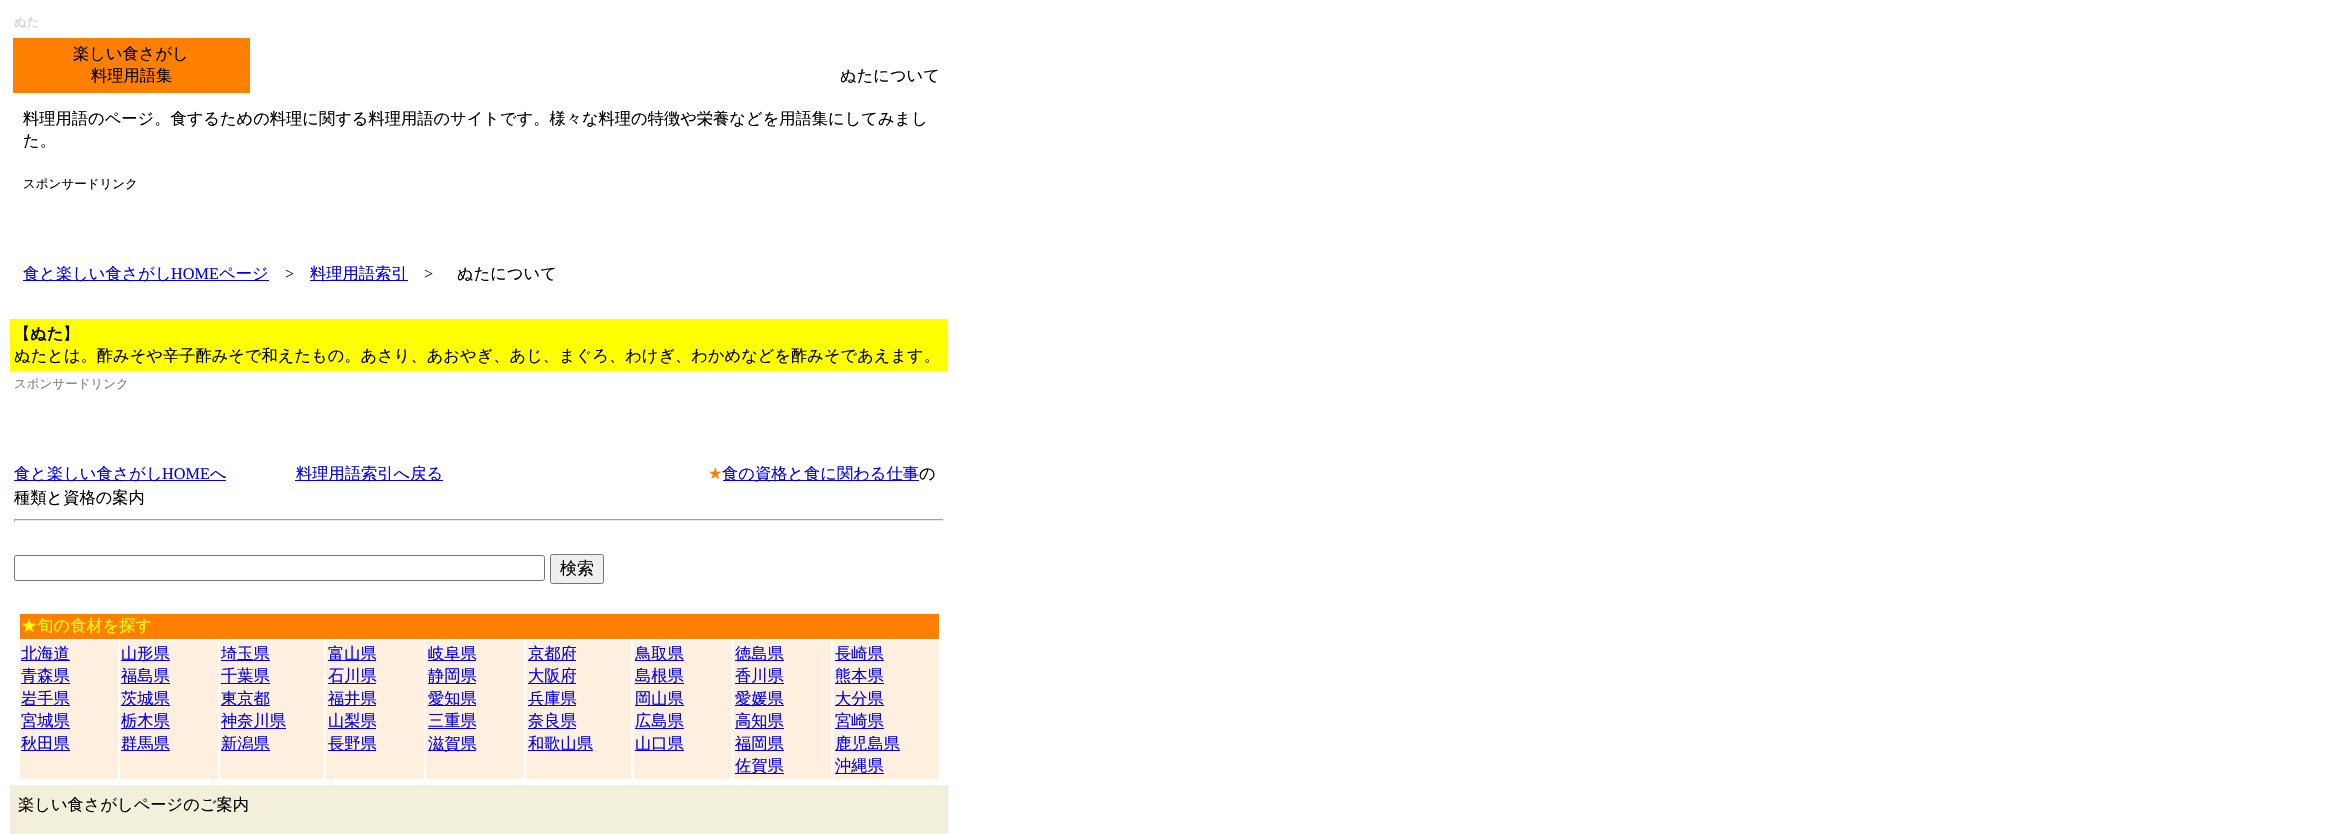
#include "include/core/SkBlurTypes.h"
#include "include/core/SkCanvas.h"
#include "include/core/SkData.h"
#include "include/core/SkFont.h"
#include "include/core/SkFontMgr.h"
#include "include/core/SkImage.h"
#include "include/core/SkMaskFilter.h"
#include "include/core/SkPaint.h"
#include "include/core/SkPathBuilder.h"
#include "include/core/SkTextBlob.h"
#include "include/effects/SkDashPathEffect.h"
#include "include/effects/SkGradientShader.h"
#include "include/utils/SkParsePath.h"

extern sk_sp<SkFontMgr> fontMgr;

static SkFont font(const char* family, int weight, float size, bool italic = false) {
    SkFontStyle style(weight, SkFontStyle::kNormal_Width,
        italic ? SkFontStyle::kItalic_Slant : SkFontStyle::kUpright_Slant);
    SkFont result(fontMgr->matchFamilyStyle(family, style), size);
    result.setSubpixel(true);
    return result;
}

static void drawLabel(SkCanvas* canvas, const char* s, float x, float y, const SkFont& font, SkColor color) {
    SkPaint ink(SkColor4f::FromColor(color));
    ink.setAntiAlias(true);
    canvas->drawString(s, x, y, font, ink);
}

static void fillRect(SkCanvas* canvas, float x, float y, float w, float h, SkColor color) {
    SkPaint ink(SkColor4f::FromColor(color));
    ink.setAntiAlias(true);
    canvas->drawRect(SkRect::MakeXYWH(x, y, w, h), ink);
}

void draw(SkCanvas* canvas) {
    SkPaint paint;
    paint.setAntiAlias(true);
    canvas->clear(0xFFFFFFFF);
    SkFont font1 = font("WenQuanYi Zen Hei", 500, 12.5f);
    drawLabel(canvas, "ぬた", 14, 26, font1, 0xFFCCCCCC);
    fillRect(canvas, 13, 38, 237, 55, 0xFFFF8000);
    SkFont font2 = font("WenQuanYi Zen Hei", 500, 16.25f);
    drawLabel(canvas, "楽しい食さがし", 73, 59, font2, 0xFF000000);
    drawLabel(canvas, "料理用語集", 91, 81, font2, 0xFF000000);
    drawLabel(canvas, "ぬたについて", 840, 81, font2, 0xFF000000);
    drawLabel(canvas, "料理用語のページ。食するための料理に関する料理用語のサイトです。様々な料理の特徴や栄養などを用語集にしてみまし", 23, 124, font2, 0xFF000000);
    drawLabel(canvas, "た。", 23, 146, font2, 0xFF000000);
    drawLabel(canvas, "スポンサードリンク", 23, 188, font1, 0xFF000000);
    fillRect(canvas, 23, 280, 246, 1, 0xFF0000EE);
    drawLabel(canvas, "食と楽しい食さがし", 23, 279, font2, 0xFF0000EE);
    SkFont font3 = font("Liberation Serif", 400, 16.25f);
    drawLabel(canvas, "HOME", 171, 279, font3, 0xFF0000EE);
    drawLabel(canvas, "ページ", 219, 279, font2, 0xFF0000EE);
    drawLabel(canvas, ">", 285, 279, font3, 0xFF000000);
    fillRect(canvas, 310, 280, 98, 1, 0xFF0000EE);
    drawLabel(canvas, "料理用語索引", 310, 279, font2, 0xFF0000EE);
    drawLabel(canvas, ">", 424, 279, font3, 0xFF000000);
    drawLabel(canvas, "ぬたについて", 457, 279, font2, 0xFF000000);
    fillRect(canvas, 10, 319, 938, 52, 0xFFFFFF00);
    drawLabel(canvas, "【", 14, 339, font2, 0xFF000000);
    SkFont font4 = font("WenQuanYi Zen Hei", 700, 16.25f);
    drawLabel(canvas, "ぬた", 30, 339, font4, 0xFF000000);
    drawLabel(canvas, "】", 63, 339, font2, 0xFF000000);
    drawLabel(canvas, "ぬたとは。酢みそや辛子酢みそで和えたもの。あさり、あおやぎ、あじ、まぐろ、わけぎ、わかめなどを酢みそであえます。", 14, 361, font2, 0xFF000000);
    drawLabel(canvas, "スポンサードリンク", 14, 388, font1, 0xFF808080);
    fillRect(canvas, 14, 480, 212, 1, 0xFF0000EE);
    drawLabel(canvas, "食と楽しい食さがし", 14, 479, font2, 0xFF0000EE);
    drawLabel(canvas, "HOME", 162, 479, font3, 0xFF0000EE);
    drawLabel(canvas, "へ", 210, 479, font2, 0xFF0000EE);
    fillRect(canvas, 295, 480, 148, 1, 0xFF0000EE);
    drawLabel(canvas, "料理用語索引へ戻る", 296, 479, font2, 0xFF0000EE);
    SkFont font5 = font("DejaVu Sans", 400, 16.25f);
    drawLabel(canvas, "★", 708, 479, font5, 0xFFFF8000);
    fillRect(canvas, 723, 480, 196, 1, 0xFF0000EE);
    drawLabel(canvas, "食の資格と食に関わる仕事", 722, 479, font2, 0xFF0000EE);
    drawLabel(canvas, "の", 919, 479, font2, 0xFF000000);
    drawLabel(canvas, "種類と資格の案内", 14, 503, font2, 0xFF000000);
    fillRect(canvas, 14, 519, 930, 1, 0xFF9F9F9F);
    fillRect(canvas, 943, 519, 1, 3, 0xFFEEEEEE);
    fillRect(canvas, 14, 520, 930, 1, 0xFFEEEEEE);
    fillRect(canvas, 14, 519, 1, 3, 0xFF9F9F9F);
    paint.setStroke(true);
    paint.setStrokeWidth(1);
    paint.setColor(0xFF767676);
    canvas->drawRoundRect(SkRect::MakeXYWH(14.5f, 555.5f, 530, 25), 2, 2, paint);
    paint.setStroke(false);
    paint.setColor(0xFFEFEFEF);
    canvas->drawRoundRect(SkRect::MakeXYWH(550.5f, 554.5f, 53, 29), 2, 2, paint);
    paint.setStroke(true);
    paint.setColor(0xFF767676);
    canvas->drawRoundRect(SkRect::MakeXYWH(550.5f, 554.5f, 53, 29), 2, 2, paint);
    SkFont font6 = font("WenQuanYi Zen Hei", 500, 17);
    drawLabel(canvas, "検索", 560, 574, font6, 0xFF000000);
    fillRect(canvas, 20, 614, 919, 25, 0xFFFF8000);
    drawLabel(canvas, "★旬の食材を探す", 21, 631, font2, 0xFFFFFF00);
    fillRect(canvas, 20, 641, 98, 138, 0xFFFFEFDF);
    fillRect(canvas, 21, 660, 49, 1, 0xFF0000EE);
    drawLabel(canvas, "北海道", 21, 659, font2, 0xFF0000EE);
    fillRect(canvas, 21, 683, 49, 1, 0xFF0000EE);
    drawLabel(canvas, "青森県", 21, 681, font2, 0xFF0000EE);
    fillRect(canvas, 21, 705, 49, 1, 0xFF0000EE);
    drawLabel(canvas, "岩手県", 21, 704, font2, 0xFF0000EE);
    fillRect(canvas, 21, 728, 49, 1, 0xFF0000EE);
    drawLabel(canvas, "宮城県", 21, 726, font2, 0xFF0000EE);
    fillRect(canvas, 21, 750, 49, 1, 0xFF0000EE);
    drawLabel(canvas, "秋田県", 21, 749, font2, 0xFF0000EE);
    fillRect(canvas, 120, 641, 98, 138, 0xFFFFEFDF);
    fillRect(canvas, 121, 660, 49, 1, 0xFF0000EE);
    drawLabel(canvas, "山形県", 121, 659, font2, 0xFF0000EE);
    fillRect(canvas, 121, 683, 49, 1, 0xFF0000EE);
    drawLabel(canvas, "福島県", 121, 681, font2, 0xFF0000EE);
    fillRect(canvas, 121, 705, 49, 1, 0xFF0000EE);
    drawLabel(canvas, "茨城県", 121, 704, font2, 0xFF0000EE);
    fillRect(canvas, 121, 728, 49, 1, 0xFF0000EE);
    drawLabel(canvas, "栃木県", 121, 726, font2, 0xFF0000EE);
    fillRect(canvas, 121, 750, 49, 1, 0xFF0000EE);
    drawLabel(canvas, "群馬県", 121, 749, font2, 0xFF0000EE);
    fillRect(canvas, 220, 641, 104, 138, 0xFFFFEFDF);
    fillRect(canvas, 221, 660, 49, 1, 0xFF0000EE);
    drawLabel(canvas, "埼玉県", 221, 659, font2, 0xFF0000EE);
    fillRect(canvas, 221, 683, 49, 1, 0xFF0000EE);
    drawLabel(canvas, "千葉県", 221, 681, font2, 0xFF0000EE);
    fillRect(canvas, 221, 705, 49, 1, 0xFF0000EE);
    drawLabel(canvas, "東京都", 221, 704, font2, 0xFF0000EE);
    fillRect(canvas, 221, 728, 65, 1, 0xFF0000EE);
    drawLabel(canvas, "神奈川県", 221, 726, font2, 0xFF0000EE);
    fillRect(canvas, 221, 750, 49, 1, 0xFF0000EE);
    drawLabel(canvas, "新潟県", 221, 749, font2, 0xFF0000EE);
    fillRect(canvas, 326, 641, 98, 138, 0xFFFFEFDF);
    fillRect(canvas, 328, 660, 48, 1, 0xFF0000EE);
    drawLabel(canvas, "富山県", 328, 659, font2, 0xFF0000EE);
    fillRect(canvas, 328, 683, 48, 1, 0xFF0000EE);
    drawLabel(canvas, "石川県", 328, 681, font2, 0xFF0000EE);
    fillRect(canvas, 328, 705, 48, 1, 0xFF0000EE);
    drawLabel(canvas, "福井県", 328, 704, font2, 0xFF0000EE);
    fillRect(canvas, 328, 728, 48, 1, 0xFF0000EE);
    drawLabel(canvas, "山梨県", 328, 726, font2, 0xFF0000EE);
    fillRect(canvas, 328, 750, 48, 1, 0xFF0000EE);
    drawLabel(canvas, "長野県", 328, 749, font2, 0xFF0000EE);
    fillRect(canvas, 426, 641, 98, 138, 0xFFFFEFDF);
    fillRect(canvas, 428, 660, 48, 1, 0xFF0000EE);
    drawLabel(canvas, "岐阜県", 428, 659, font2, 0xFF0000EE);
    fillRect(canvas, 428, 683, 48, 1, 0xFF0000EE);
    drawLabel(canvas, "静岡県", 428, 681, font2, 0xFF0000EE);
    fillRect(canvas, 428, 705, 48, 1, 0xFF0000EE);
    drawLabel(canvas, "愛知県", 428, 704, font2, 0xFF0000EE);
    fillRect(canvas, 428, 728, 48, 1, 0xFF0000EE);
    drawLabel(canvas, "三重県", 428, 726, font2, 0xFF0000EE);
    fillRect(canvas, 428, 750, 48, 1, 0xFF0000EE);
    drawLabel(canvas, "滋賀県", 428, 749, font2, 0xFF0000EE);
    fillRect(canvas, 526, 641, 105, 138, 0xFFFFEFDF);
    fillRect(canvas, 528, 660, 48, 1, 0xFF0000EE);
    drawLabel(canvas, "京都府", 528, 659, font2, 0xFF0000EE);
    fillRect(canvas, 528, 683, 48, 1, 0xFF0000EE);
    drawLabel(canvas, "大阪府", 528, 681, font2, 0xFF0000EE);
    fillRect(canvas, 528, 705, 48, 1, 0xFF0000EE);
    drawLabel(canvas, "兵庫県", 528, 704, font2, 0xFF0000EE);
    fillRect(canvas, 528, 728, 48, 1, 0xFF0000EE);
    drawLabel(canvas, "奈良県", 528, 726, font2, 0xFF0000EE);
    fillRect(canvas, 528, 750, 65, 1, 0xFF0000EE);
    drawLabel(canvas, "和歌山県", 528, 749, font2, 0xFF0000EE);
    fillRect(canvas, 634, 641, 97, 138, 0xFFFFEFDF);
    fillRect(canvas, 635, 660, 49, 1, 0xFF0000EE);
    drawLabel(canvas, "鳥取県", 635, 659, font2, 0xFF0000EE);
    fillRect(canvas, 635, 683, 49, 1, 0xFF0000EE);
    drawLabel(canvas, "島根県", 635, 681, font2, 0xFF0000EE);
    fillRect(canvas, 635, 705, 49, 1, 0xFF0000EE);
    drawLabel(canvas, "岡山県", 635, 704, font2, 0xFF0000EE);
    fillRect(canvas, 635, 728, 49, 1, 0xFF0000EE);
    drawLabel(canvas, "広島県", 635, 726, font2, 0xFF0000EE);
    fillRect(canvas, 635, 750, 49, 1, 0xFF0000EE);
    drawLabel(canvas, "山口県", 635, 749, font2, 0xFF0000EE);
    fillRect(canvas, 734, 641, 97, 138, 0xFFFFEFDF);
    fillRect(canvas, 735, 660, 49, 1, 0xFF0000EE);
    drawLabel(canvas, "徳島県", 735, 659, font2, 0xFF0000EE);
    fillRect(canvas, 735, 683, 49, 1, 0xFF0000EE);
    drawLabel(canvas, "香川県", 735, 681, font2, 0xFF0000EE);
    fillRect(canvas, 735, 705, 49, 1, 0xFF0000EE);
    drawLabel(canvas, "愛媛県", 735, 704, font2, 0xFF0000EE);
    fillRect(canvas, 735, 728, 49, 1, 0xFF0000EE);
    drawLabel(canvas, "高知県", 735, 726, font2, 0xFF0000EE);
    fillRect(canvas, 735, 750, 49, 1, 0xFF0000EE);
    drawLabel(canvas, "福岡県", 735, 749, font2, 0xFF0000EE);
    fillRect(canvas, 735, 773, 49, 1, 0xFF0000EE);
    drawLabel(canvas, "佐賀県", 735, 771, font2, 0xFF0000EE);
    fillRect(canvas, 834, 641, 105, 138, 0xFFFFEFDF);
    fillRect(canvas, 835, 660, 49, 1, 0xFF0000EE);
    drawLabel(canvas, "長崎県", 835, 659, font2, 0xFF0000EE);
    fillRect(canvas, 835, 683, 49, 1, 0xFF0000EE);
    drawLabel(canvas, "熊本県", 835, 681, font2, 0xFF0000EE);
    fillRect(canvas, 835, 705, 49, 1, 0xFF0000EE);
    drawLabel(canvas, "大分県", 835, 704, font2, 0xFF0000EE);
    fillRect(canvas, 835, 728, 49, 1, 0xFF0000EE);
    drawLabel(canvas, "宮崎県", 835, 726, font2, 0xFF0000EE);
    fillRect(canvas, 835, 750, 65, 1, 0xFF0000EE);
    drawLabel(canvas, "鹿児島県", 835, 749, font2, 0xFF0000EE);
    fillRect(canvas, 835, 773, 49, 1, 0xFF0000EE);
    drawLabel(canvas, "沖縄県", 835, 771, font2, 0xFF0000EE);
    fillRect(canvas, 10, 785, 938, 49, 0xFFF2F0DB);
    drawLabel(canvas, "楽しい食さがしページのご案内", 18, 810, font2, 0xFF000000);
}
